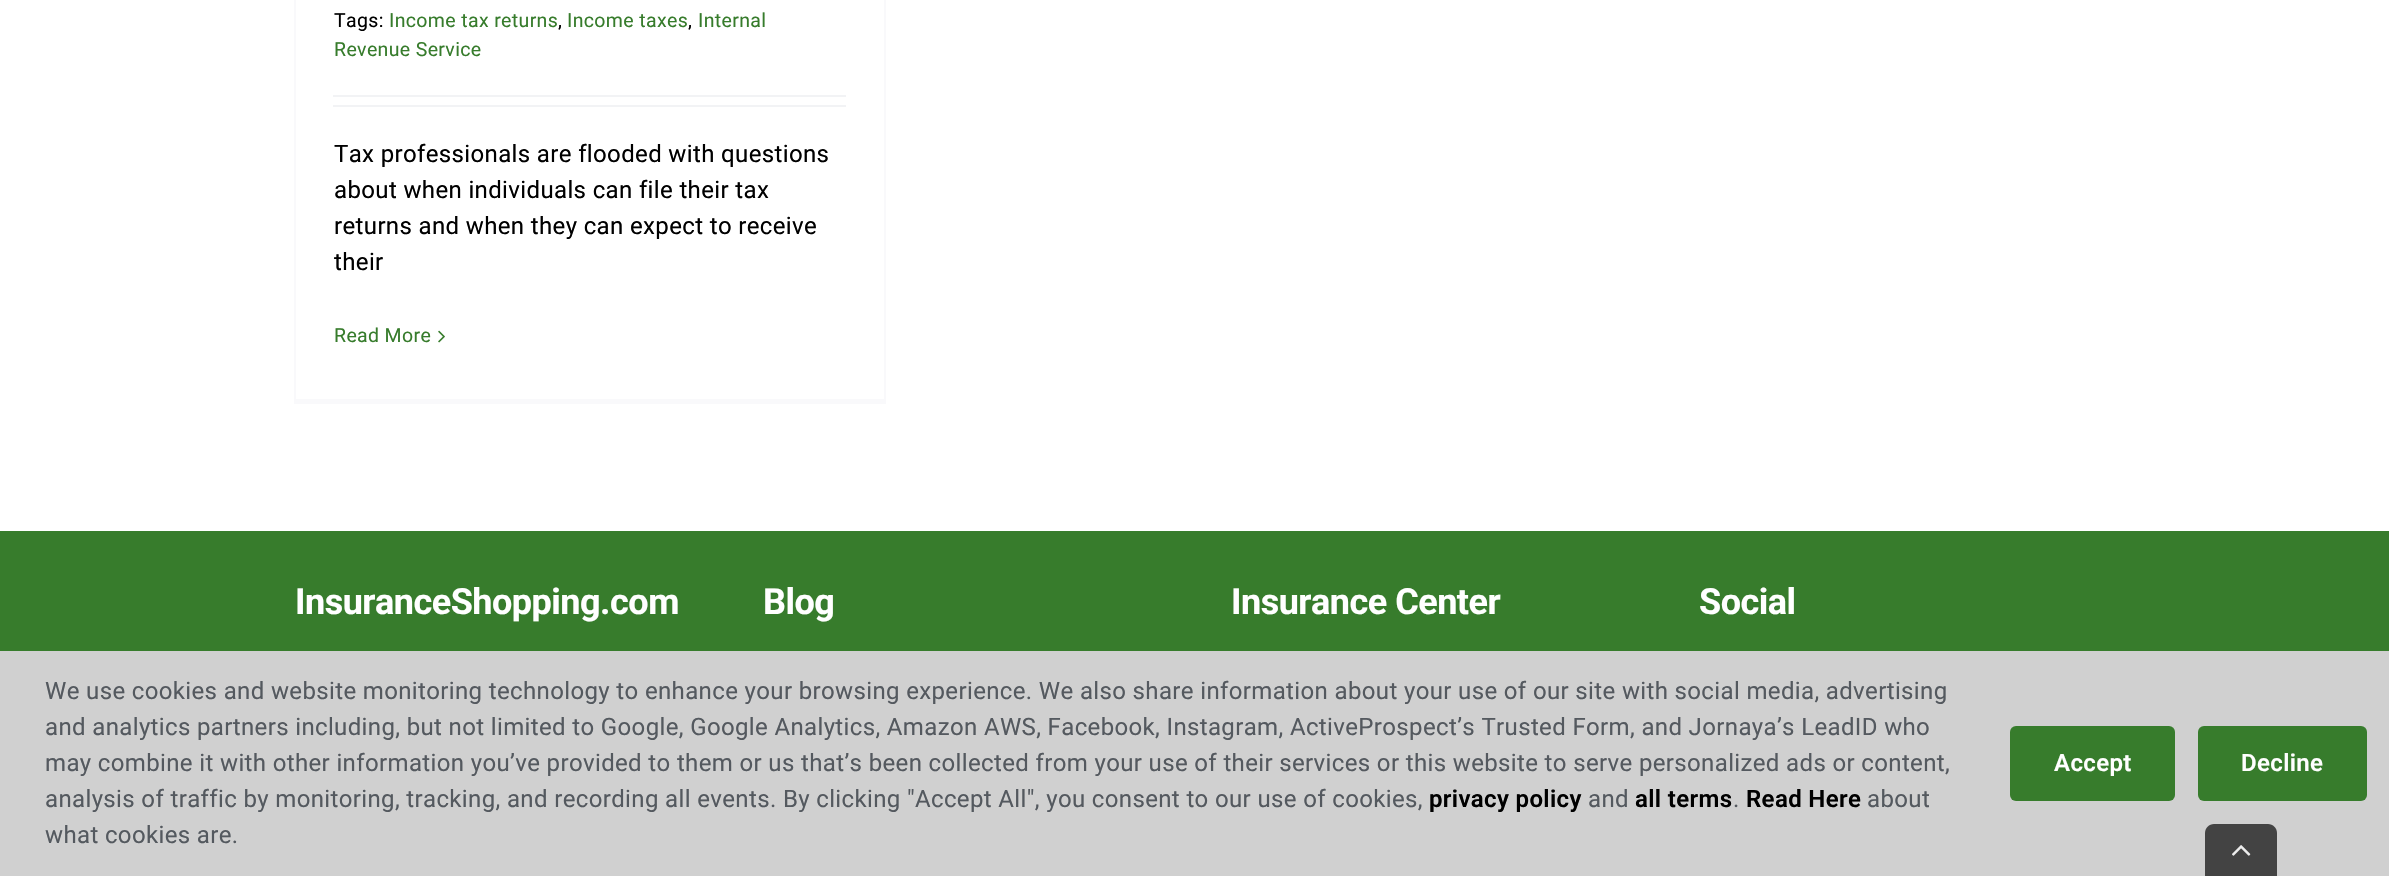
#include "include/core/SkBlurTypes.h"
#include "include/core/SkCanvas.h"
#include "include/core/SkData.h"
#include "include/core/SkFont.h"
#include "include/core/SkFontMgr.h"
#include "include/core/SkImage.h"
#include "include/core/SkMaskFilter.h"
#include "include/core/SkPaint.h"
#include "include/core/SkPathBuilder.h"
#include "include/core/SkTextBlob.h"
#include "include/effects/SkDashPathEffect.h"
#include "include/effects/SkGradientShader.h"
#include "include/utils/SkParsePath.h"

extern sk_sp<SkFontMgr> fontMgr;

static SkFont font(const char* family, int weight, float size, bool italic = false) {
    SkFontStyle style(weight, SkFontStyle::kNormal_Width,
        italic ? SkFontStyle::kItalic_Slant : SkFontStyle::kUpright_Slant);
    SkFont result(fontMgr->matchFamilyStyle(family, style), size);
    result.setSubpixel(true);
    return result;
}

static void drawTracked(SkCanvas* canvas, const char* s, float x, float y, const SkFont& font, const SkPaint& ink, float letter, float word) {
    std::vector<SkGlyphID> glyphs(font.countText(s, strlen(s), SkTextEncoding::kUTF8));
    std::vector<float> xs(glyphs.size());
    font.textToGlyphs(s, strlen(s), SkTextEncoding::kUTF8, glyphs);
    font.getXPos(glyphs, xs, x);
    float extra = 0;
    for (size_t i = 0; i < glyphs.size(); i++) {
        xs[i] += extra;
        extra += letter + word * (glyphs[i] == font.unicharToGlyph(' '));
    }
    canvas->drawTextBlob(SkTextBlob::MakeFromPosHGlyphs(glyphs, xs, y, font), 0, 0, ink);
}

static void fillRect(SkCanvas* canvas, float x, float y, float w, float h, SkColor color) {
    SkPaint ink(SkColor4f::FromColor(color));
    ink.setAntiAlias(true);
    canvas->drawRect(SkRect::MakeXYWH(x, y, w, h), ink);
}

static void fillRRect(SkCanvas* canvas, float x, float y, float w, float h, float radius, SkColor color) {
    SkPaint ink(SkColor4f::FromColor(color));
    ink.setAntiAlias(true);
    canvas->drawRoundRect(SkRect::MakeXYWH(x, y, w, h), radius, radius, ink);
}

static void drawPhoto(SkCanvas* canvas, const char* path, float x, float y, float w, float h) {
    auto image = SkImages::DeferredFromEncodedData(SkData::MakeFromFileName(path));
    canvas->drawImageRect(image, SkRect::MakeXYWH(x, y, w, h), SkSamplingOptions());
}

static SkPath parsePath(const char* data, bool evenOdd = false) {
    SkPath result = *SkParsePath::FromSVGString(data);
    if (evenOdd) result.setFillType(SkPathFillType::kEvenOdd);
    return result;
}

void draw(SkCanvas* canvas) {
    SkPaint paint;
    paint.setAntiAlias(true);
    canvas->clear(0xFFFFFFFF);
    fillRect(canvas, 884, 0, 2, 404, 0xFFF9F9FB);
    fillRect(canvas, 294, 399, 591, 5, 0xFFF9F9FB);
    fillRect(canvas, 294, 0, 2, 404, 0xFFF9F9FB);
    SkFont font1 = font("Roboto", 400, 19.5f);
    paint.setColor(0xFF000000);
    drawTracked(canvas, "Tags:", 334, 27, font1, paint, 0.36f, 0);
    paint.setColor(0xFF377C2C);
    drawTracked(canvas, "Income tax returns", 389, 27, font1, paint, 0.36f, 0);
    paint.setColor(0xFF000000);
    drawTracked(canvas, ",", 558, 27, font1, paint, 0.36f, 0);
    paint.setColor(0xFF377C2C);
    drawTracked(canvas, "Income taxes", 567, 27, font1, paint, 0.36f, 0);
    paint.setColor(0xFF000000);
    drawTracked(canvas, ",", 688, 27, font1, paint, 0.36f, 0);
    paint.setColor(0xFF377C2C);
    drawTracked(canvas, "Internal", 698, 27, font1, paint, 0.36f, 0);
    drawTracked(canvas, "Revenue Service", 334, 56, font1, paint, 0.36f, 0);
    fillRect(canvas, 333, 95, 513, 2, 0xFFF2F3F5);
    fillRect(canvas, 333, 105, 513, 2, 0xFFF2F3F5);
    SkFont font2 = font("Roboto", 400, 24);
    paint.setColor(0xFF000000);
    drawTracked(canvas, "Tax professionals are flooded with questions", 334, 162, font2, paint, 0.36f, 0);
    drawTracked(canvas, "about when individuals can file their tax", 334, 198, font2, paint, 0.36f, 0);
    drawTracked(canvas, "returns and when they can expect to receive", 334, 234, font2, paint, 0.36f, 0);
    drawTracked(canvas, "their", 334, 270, font2, paint, 0.36f, 0);
    paint.setColor(0xFF377C2C);
    drawTracked(canvas, "Read More", 334, 342, font1, paint, 0.36f, 0);
    drawPhoto(canvas, "assets/img1.png", 438, 330, 7, 13);
    fillRect(canvas, 0, 531, 2389, 120, 0xFF377C2C);
    SkFont font3 = font("Roboto", 700, 36);
    paint.setColor(0xFFFFFFFF);
    drawTracked(canvas, "InsuranceShopping.com", 295, 614, font3, paint, -0.5f, 0);
    drawTracked(canvas, "Blog", 763, 614, font3, paint, -0.5f, 0);
    drawTracked(canvas, "Insurance Center", 1231, 614, font3, paint, -0.5f, 0);
    drawTracked(canvas, "Social", 1699, 614, font3, paint, -0.5f, 0);
    fillRect(canvas, 0, 651, 2389, 225, 0xFFD0D0D0);
    paint.setColor(0xFF54595F);
    drawTracked(canvas, "We use cookies and website monitoring technology to enhance your browsing experience. We also share information about your use of our site with social media, advertising", 45, 699, font2, paint, 0.36f, 0);
    drawTracked(canvas, "and analytics partners including, but not limited to Google, Google Analytics, Amazon AWS, Facebook, Instagram, ActiveProspect’s Trusted Form, and Jornaya’s LeadID who", 45, 735, font2, paint, 0.36f, 0);
    drawTracked(canvas, "may combine it with other information you’ve provided to them or us that’s been collected from your use of their services or this website to serve personalized ads or content,", 45, 771, font2, paint, 0.36f, 0);
    drawTracked(canvas, "analysis of traffic by monitoring, tracking, and recording all events. By clicking \"Accept All\", you consent to our use of cookies,", 45, 807, font2, paint, 0.36f, 0);
    SkFont font4 = font("Roboto", 600, 24);
    paint.setColor(0xFF000000);
    drawTracked(canvas, "privacy policy", 1429, 807, font4, paint, 0.36f, 0);
    paint.setColor(0xFF54595F);
    drawTracked(canvas, "and", 1588, 807, font2, paint, 0.36f, 0);
    paint.setColor(0xFF000000);
    drawTracked(canvas, "all terms", 1635, 807, font4, paint, 0.36f, 0);
    paint.setColor(0xFF54595F);
    drawTracked(canvas, ".", 1733, 807, font2, paint, 0.36f, 0);
    paint.setColor(0xFF000000);
    drawTracked(canvas, "Read Here", 1746, 807, font4, paint, 0.36f, 0);
    paint.setColor(0xFF54595F);
    drawTracked(canvas, "about", 1867, 807, font2, paint, 0.36f, 0);
    drawTracked(canvas, "what cookies are.", 45, 843, font2, paint, 0.36f, 0);
    fillRRect(canvas, 2010, 726, 165, 75, 6, 0xFF377C2C);
    paint.setColor(0xFFFFFFFF);
    drawTracked(canvas, "Accept", 2054, 771, font4, paint, 0.36f, 0);
    fillRRect(canvas, 2198, 726, 169, 75, 6, 0xFF377C2C);
    drawTracked(canvas, "Decline", 2241, 771, font4, paint, 0.36f, 0);
    paint.setColor(0xFF434343);
    canvas->drawPath(parsePath("M2214 824H2268C2273 824 2277 828 2277 833V876H2205V833C2205 828 2209 824 2214 824Z"), paint);
    drawPhoto(canvas, "assets/img2.png", 2232, 845, 19, 11);
}
